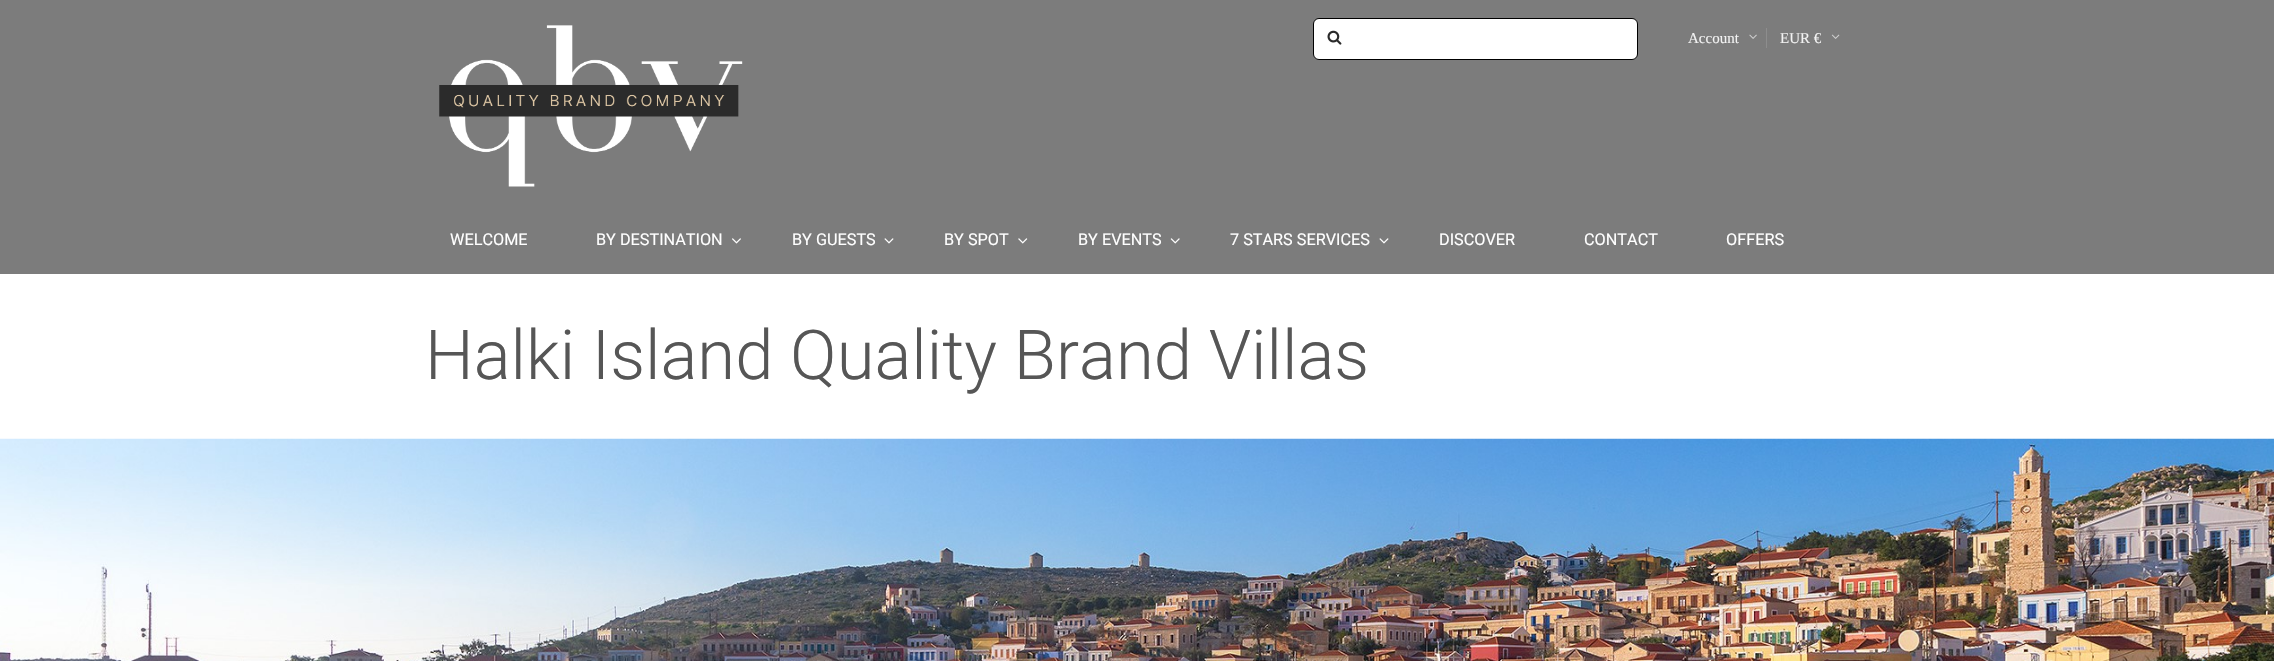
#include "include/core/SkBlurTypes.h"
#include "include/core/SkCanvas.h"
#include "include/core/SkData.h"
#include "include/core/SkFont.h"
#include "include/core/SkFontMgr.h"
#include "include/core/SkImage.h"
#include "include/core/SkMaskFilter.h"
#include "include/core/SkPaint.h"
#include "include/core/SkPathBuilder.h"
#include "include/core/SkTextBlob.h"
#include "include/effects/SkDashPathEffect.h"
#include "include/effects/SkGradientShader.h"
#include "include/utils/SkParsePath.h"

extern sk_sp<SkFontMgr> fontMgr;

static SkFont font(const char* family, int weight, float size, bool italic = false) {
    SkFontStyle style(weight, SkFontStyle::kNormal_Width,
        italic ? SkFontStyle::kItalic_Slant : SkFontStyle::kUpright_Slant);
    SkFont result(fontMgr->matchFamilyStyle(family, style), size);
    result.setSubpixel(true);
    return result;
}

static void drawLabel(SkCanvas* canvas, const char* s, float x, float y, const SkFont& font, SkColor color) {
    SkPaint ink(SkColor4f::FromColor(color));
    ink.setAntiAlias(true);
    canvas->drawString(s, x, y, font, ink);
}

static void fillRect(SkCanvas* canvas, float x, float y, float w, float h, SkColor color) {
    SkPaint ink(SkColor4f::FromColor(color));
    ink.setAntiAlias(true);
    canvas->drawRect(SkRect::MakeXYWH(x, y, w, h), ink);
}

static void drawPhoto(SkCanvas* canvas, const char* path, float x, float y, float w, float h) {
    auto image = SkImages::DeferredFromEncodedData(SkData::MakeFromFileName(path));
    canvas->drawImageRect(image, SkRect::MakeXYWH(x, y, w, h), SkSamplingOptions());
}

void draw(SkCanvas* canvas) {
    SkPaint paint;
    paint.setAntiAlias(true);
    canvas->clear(0xFFFFFFFF);
    fillRect(canvas, 0, 0, 2274, 274, 0xFF7C7C7C);
    drawPhoto(canvas, "assets/img1.png", 439, 25, 304, 162);
    paint.setColor(0xFFFFFFFF);
    canvas->drawRoundRect(SkRect::MakeXYWH(1313.5f, 18.5f, 324, 41), 5.5f, 5.5f, paint);
    paint.setStroke(true);
    paint.setStrokeWidth(1);
    paint.setColor(0xFF000000);
    canvas->drawRoundRect(SkRect::MakeXYWH(1313.5f, 18.5f, 324, 41), 5.5f, 5.5f, paint);
    drawPhoto(canvas, "assets/img2.png", 1327, 30, 15, 15);
    SkFont font1 = font("Liberation Serif", 400, 15);
    drawLabel(canvas, "Account", 1688, 43, font1, 0xFFF2F2F2);
    drawPhoto(canvas, "assets/img3.png", 1749, 34, 8, 5);
    fillRect(canvas, 1766, 28, 1, 20, 0xFF8D8D8D);
    drawLabel(canvas, "EUR €", 1780, 43, font1, 0xFFF2F2F2);
    drawPhoto(canvas, "assets/img4.png", 1831, 34, 9, 5);
    SkFont font2 = font("Roboto", 400, 16.25f);
    drawLabel(canvas, "WELCOME", 450, 245, font2, 0xFFFFFFFF);
    drawLabel(canvas, "BY DESTINATION", 596, 245, font2, 0xFFFFFFFF);
    drawPhoto(canvas, "assets/img5.png", 732, 238, 9, 6);
    drawLabel(canvas, "BY GUESTS", 792, 245, font2, 0xFFFFFFFF);
    drawPhoto(canvas, "assets/img6.png", 884, 238, 10, 6);
    drawLabel(canvas, "BY SPOT", 944, 245, font2, 0xFFFFFFFF);
    drawPhoto(canvas, "assets/img7.png", 1018, 238, 10, 6);
    drawLabel(canvas, "BY EVENTS", 1078, 245, font2, 0xFFFFFFFF);
    drawPhoto(canvas, "assets/img8.png", 1170, 238, 10, 6);
    drawLabel(canvas, "7 STARS SERVICES", 1230, 245, font2, 0xFFFFFFFF);
    drawPhoto(canvas, "assets/img6.png", 1379, 238, 10, 6);
    drawLabel(canvas, "DISCOVER", 1439, 245, font2, 0xFFFFFFFF);
    drawLabel(canvas, "CONTACT", 1584, 245, font2, 0xFFFFFFFF);
    drawLabel(canvas, "OFFERS", 1726, 245, font2, 0xFFFFFFFF);
    SkFont font3 = font("Roboto", 300, 68.75f);
    drawLabel(canvas, "Halki Island Quality Brand Villas", 425, 379, font3, 0xFF565656);
    drawPhoto(canvas, "assets/img9.png", 0, 438, 2274, 223);
}
